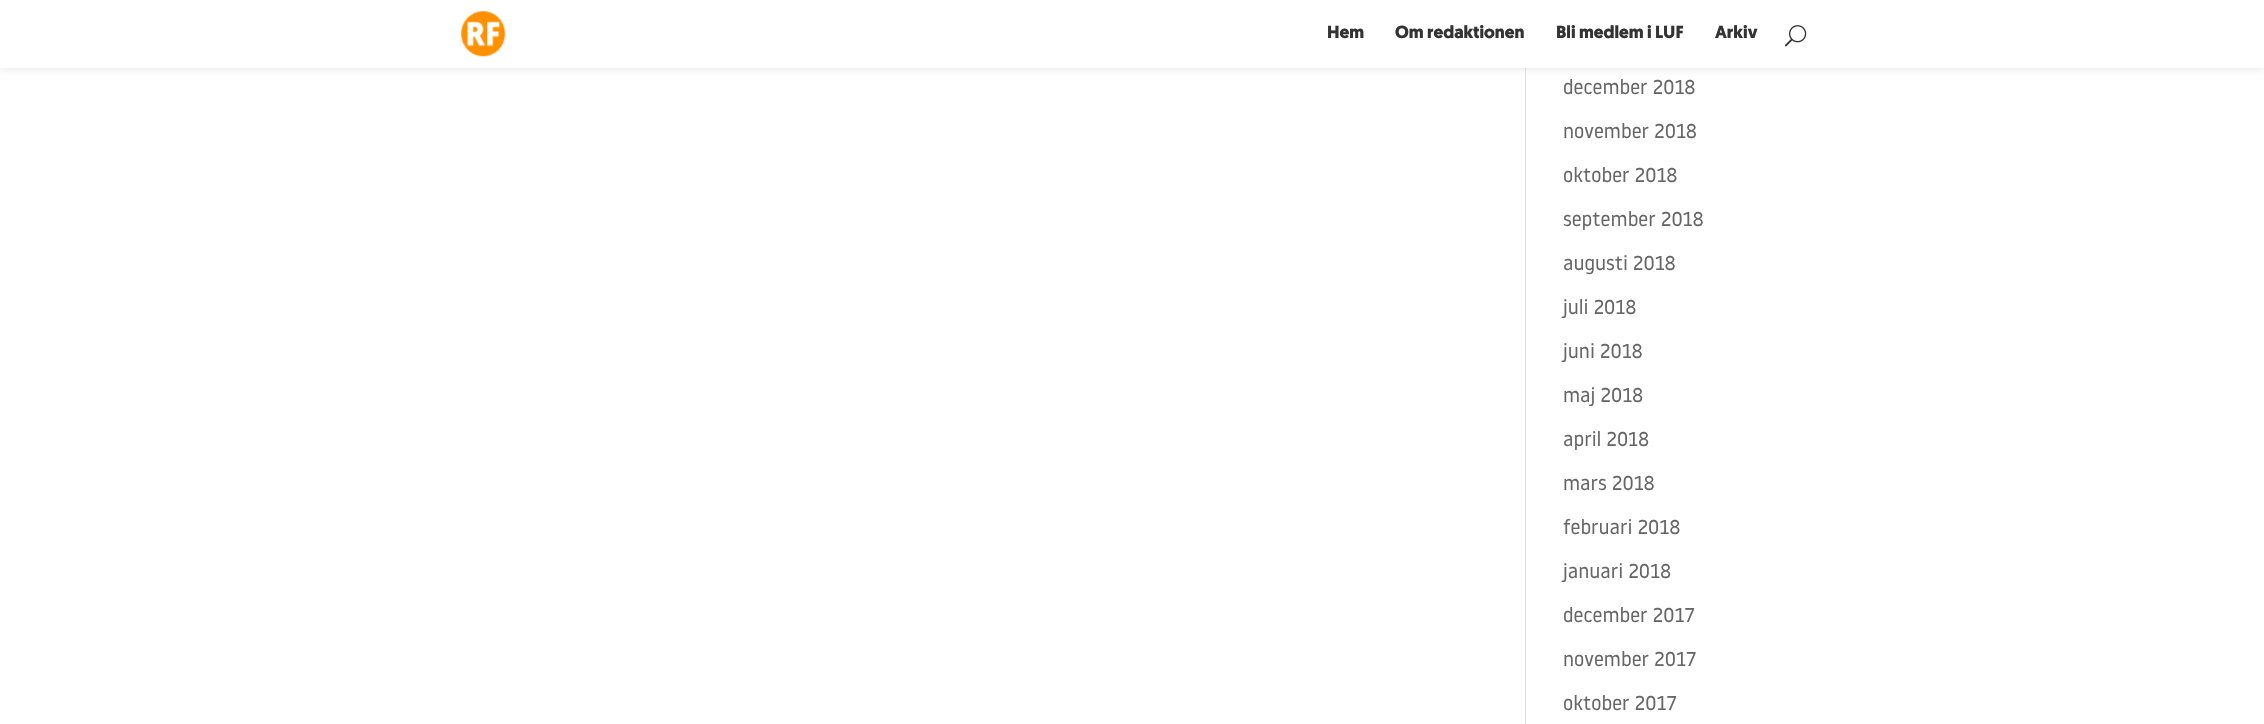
#include "include/core/SkBlurTypes.h"
#include "include/core/SkCanvas.h"
#include "include/core/SkData.h"
#include "include/core/SkFont.h"
#include "include/core/SkFontMgr.h"
#include "include/core/SkImage.h"
#include "include/core/SkMaskFilter.h"
#include "include/core/SkPaint.h"
#include "include/core/SkPathBuilder.h"
#include "include/core/SkTextBlob.h"
#include "include/effects/SkDashPathEffect.h"
#include "include/effects/SkGradientShader.h"
#include "include/utils/SkParsePath.h"

extern sk_sp<SkFontMgr> fontMgr;

static SkFont font(const char* family, int weight, float size, bool italic = false) {
    SkFontStyle style(weight, SkFontStyle::kNormal_Width,
        italic ? SkFontStyle::kItalic_Slant : SkFontStyle::kUpright_Slant);
    SkFont result(fontMgr->matchFamilyStyle(family, style), size);
    result.setSubpixel(true);
    return result;
}

static void drawLabel(SkCanvas* canvas, const char* s, float x, float y, const SkFont& font, SkColor color) {
    SkPaint ink(SkColor4f::FromColor(color));
    ink.setAntiAlias(true);
    canvas->drawString(s, x, y, font, ink);
}

static void fillRect(SkCanvas* canvas, float x, float y, float w, float h, SkColor color) {
    SkPaint ink(SkColor4f::FromColor(color));
    ink.setAntiAlias(true);
    canvas->drawRect(SkRect::MakeXYWH(x, y, w, h), ink);
}

static void drawPhoto(SkCanvas* canvas, const char* path, float x, float y, float w, float h) {
    auto image = SkImages::DeferredFromEncodedData(SkData::MakeFromFileName(path));
    canvas->drawImageRect(image, SkRect::MakeXYWH(x, y, w, h), SkSamplingOptions());
}

void draw(SkCanvas* canvas) {
    SkPaint paint;
    paint.setAntiAlias(true);
    canvas->clear(0xFFFFFFFF);
    fillRect(canvas, 1525, 68, 1, 656, 0xFFE2E2E2);
    paint.setColor(0x1A000000);
    paint.setMaskFilter(SkMaskFilter::MakeBlur(kNormal_SkBlurStyle, 4.5f));
    canvas->drawRect(SkRect::MakeXYWH(0, 0, 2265, 68), paint);
    paint.setMaskFilter(nullptr);
    fillRect(canvas, 0, 0, 2264, 68, 0xFFFFFFFF);
    drawPhoto(canvas, "assets/img1.png", 461, 11, 45, 46);
    SkFont font1 = font("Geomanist", 700, 17.5f);
    drawLabel(canvas, "Hem", 1327, 38, font1, 0xFF333333);
    drawLabel(canvas, "Om redaktionen", 1395, 38, font1, 0xFF333333);
    drawLabel(canvas, "Bli medlem i LUF", 1556, 38, font1, 0xFF333333);
    drawLabel(canvas, "Arkiv", 1715, 38, font1, 0xFF333333);
    drawPhoto(canvas, "assets/img2.png", 1785, 25, 22, 22);
    SkFont font2 = font("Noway", 400, 20);
    drawLabel(canvas, "december 2018", 1563, 94, font2, 0xFF666666);
    drawLabel(canvas, "november 2018", 1563, 138, font2, 0xFF666666);
    drawLabel(canvas, "oktober 2018", 1563, 182, font2, 0xFF666666);
    drawLabel(canvas, "september 2018", 1563, 226, font2, 0xFF666666);
    drawLabel(canvas, "augusti 2018", 1563, 270, font2, 0xFF666666);
    drawLabel(canvas, "juli 2018", 1563, 314, font2, 0xFF666666);
    drawLabel(canvas, "juni 2018", 1563, 358, font2, 0xFF666666);
    drawLabel(canvas, "maj 2018", 1563, 402, font2, 0xFF666666);
    drawLabel(canvas, "april 2018", 1563, 446, font2, 0xFF666666);
    drawLabel(canvas, "mars 2018", 1563, 490, font2, 0xFF666666);
    drawLabel(canvas, "februari 2018", 1563, 534, font2, 0xFF666666);
    drawLabel(canvas, "januari 2018", 1563, 578, font2, 0xFF666666);
    drawLabel(canvas, "december 2017", 1563, 622, font2, 0xFF666666);
    drawLabel(canvas, "november 2017", 1563, 666, font2, 0xFF666666);
    drawLabel(canvas, "oktober 2017", 1563, 710, font2, 0xFF666666);
}
